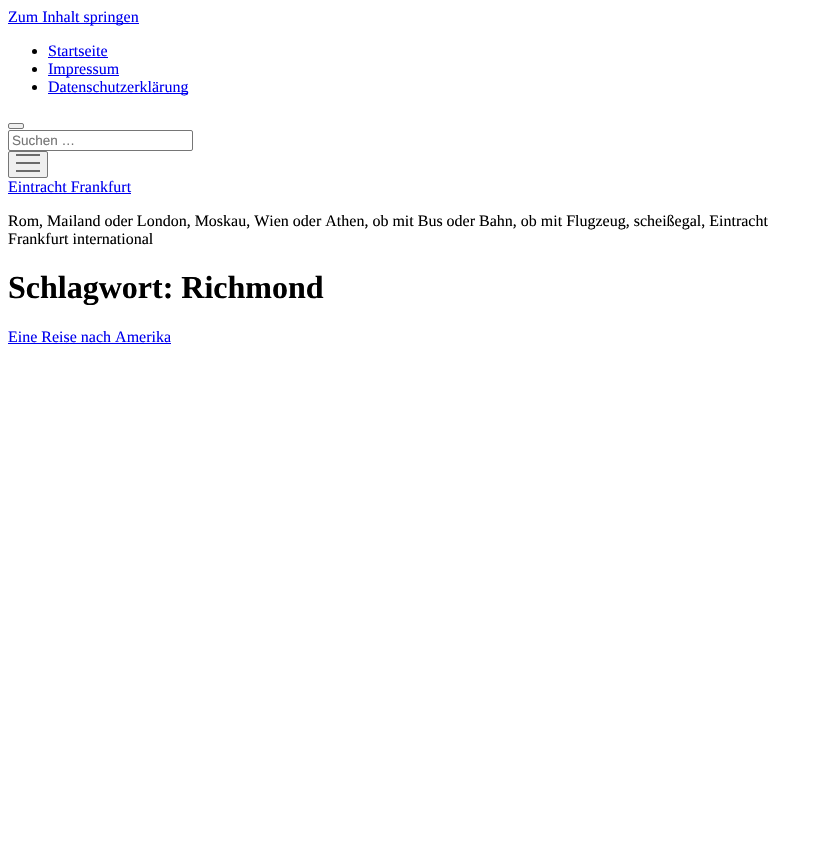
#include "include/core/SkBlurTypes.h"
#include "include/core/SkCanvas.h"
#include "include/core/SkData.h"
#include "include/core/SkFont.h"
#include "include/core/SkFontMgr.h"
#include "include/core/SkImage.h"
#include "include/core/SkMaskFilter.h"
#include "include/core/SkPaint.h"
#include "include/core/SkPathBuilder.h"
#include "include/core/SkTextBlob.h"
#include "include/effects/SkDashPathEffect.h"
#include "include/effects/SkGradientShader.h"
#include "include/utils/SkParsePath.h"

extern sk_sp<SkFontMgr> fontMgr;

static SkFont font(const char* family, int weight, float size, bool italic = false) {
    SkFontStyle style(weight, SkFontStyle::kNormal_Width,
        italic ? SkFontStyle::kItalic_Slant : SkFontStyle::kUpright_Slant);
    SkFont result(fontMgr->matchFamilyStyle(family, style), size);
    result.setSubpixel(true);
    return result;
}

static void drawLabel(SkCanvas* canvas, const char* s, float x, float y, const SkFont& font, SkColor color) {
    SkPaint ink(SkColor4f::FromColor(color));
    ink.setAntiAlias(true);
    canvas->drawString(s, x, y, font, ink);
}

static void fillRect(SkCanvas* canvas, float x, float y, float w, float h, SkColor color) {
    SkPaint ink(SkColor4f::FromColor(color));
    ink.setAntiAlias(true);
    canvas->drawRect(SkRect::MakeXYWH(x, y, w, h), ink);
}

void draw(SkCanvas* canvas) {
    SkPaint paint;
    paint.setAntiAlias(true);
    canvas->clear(0xFFFFFFFF);
    fillRect(canvas, 8, 23, 131, 1, 0xFF0000EE);
    SkFont font1 = font("Liberation Serif", 400, 16);
    drawLabel(canvas, "Zum Inhalt springen", 8, 22, font1, 0xFF0000EE);
    paint.setColor(0xFF000000);
    canvas->drawCircle(34.5f, 51.5f, 2.5f, paint);
    drawLabel(canvas, "Startseite", 48, 56, font1, 0xFF0000EE);
    fillRect(canvas, 48, 57, 60, 1, 0xFF0000EE);
    canvas->drawCircle(34.5f, 69.5f, 2.5f, paint);
    fillRect(canvas, 48, 75, 71, 1, 0xFF0000EE);
    drawLabel(canvas, "Impressum", 48, 74, font1, 0xFF0000EE);
    canvas->drawCircle(34.5f, 87.5f, 2.5f, paint);
    fillRect(canvas, 48, 93, 140, 1, 0xFF0000EE);
    drawLabel(canvas, "Datenschutzerklärung", 48, 92, font1, 0xFF0000EE);
    paint.setColor(0xFFEFEFEF);
    canvas->drawRoundRect(SkRect::MakeXYWH(8.5f, 123.5f, 15, 5), 1.5f, 1.5f, paint);
    paint.setStroke(true);
    paint.setStrokeWidth(1);
    paint.setColor(0xFF767676);
    canvas->drawRoundRect(SkRect::MakeXYWH(8.5f, 123.5f, 15, 5), 1.5f, 1.5f, paint);
    canvas->drawRoundRect(SkRect::MakeXYWH(8.5f, 130.5f, 184, 20), 1.5f, 1.5f, paint);
    SkFont font2 = font("Liberation Sans", 400, 13.5f);
    drawLabel(canvas, "Suchen …", 12, 145, font2, 0xFF757575);
    paint.setStroke(false);
    paint.setColor(0xFFEFEFEF);
    canvas->drawRoundRect(SkRect::MakeXYWH(8.5f, 151.5f, 39, 26), 1.5f, 1.5f, paint);
    paint.setStroke(true);
    paint.setColor(0xFF767676);
    canvas->drawRoundRect(SkRect::MakeXYWH(8.5f, 151.5f, 39, 26), 1.5f, 1.5f, paint);
    fillRect(canvas, 16, 154, 24, 2, 0xFF6B6B6B);
    fillRect(canvas, 16, 162, 24, 2, 0xFF6B6B6B);
    fillRect(canvas, 16, 170, 24, 2, 0xFF6B6B6B);
    drawLabel(canvas, "Eintracht Frankfurt", 8, 192, font1, 0xFF0000EE);
    fillRect(canvas, 8, 193, 123, 1, 0xFF0000EE);
    drawLabel(canvas, "Rom, Mailand oder London, Moskau, Wien oder Athen, ob mit Bus oder Bahn, ob mit Flugzeug, scheißegal, Eintracht", 8, 226, font1, 0xFF000000);
    drawLabel(canvas, "Frankfurt international", 8, 244, font1, 0xFF000000);
    SkFont font3 = font("Liberation Serif", 700, 32);
    drawLabel(canvas, "Schlagwort: Richmond", 8, 298, font3, 0xFF000000);
    drawLabel(canvas, "Eine Reise nach Amerika", 8, 342, font1, 0xFF0000EE);
    fillRect(canvas, 8, 343, 163, 1, 0xFF0000EE);
}
